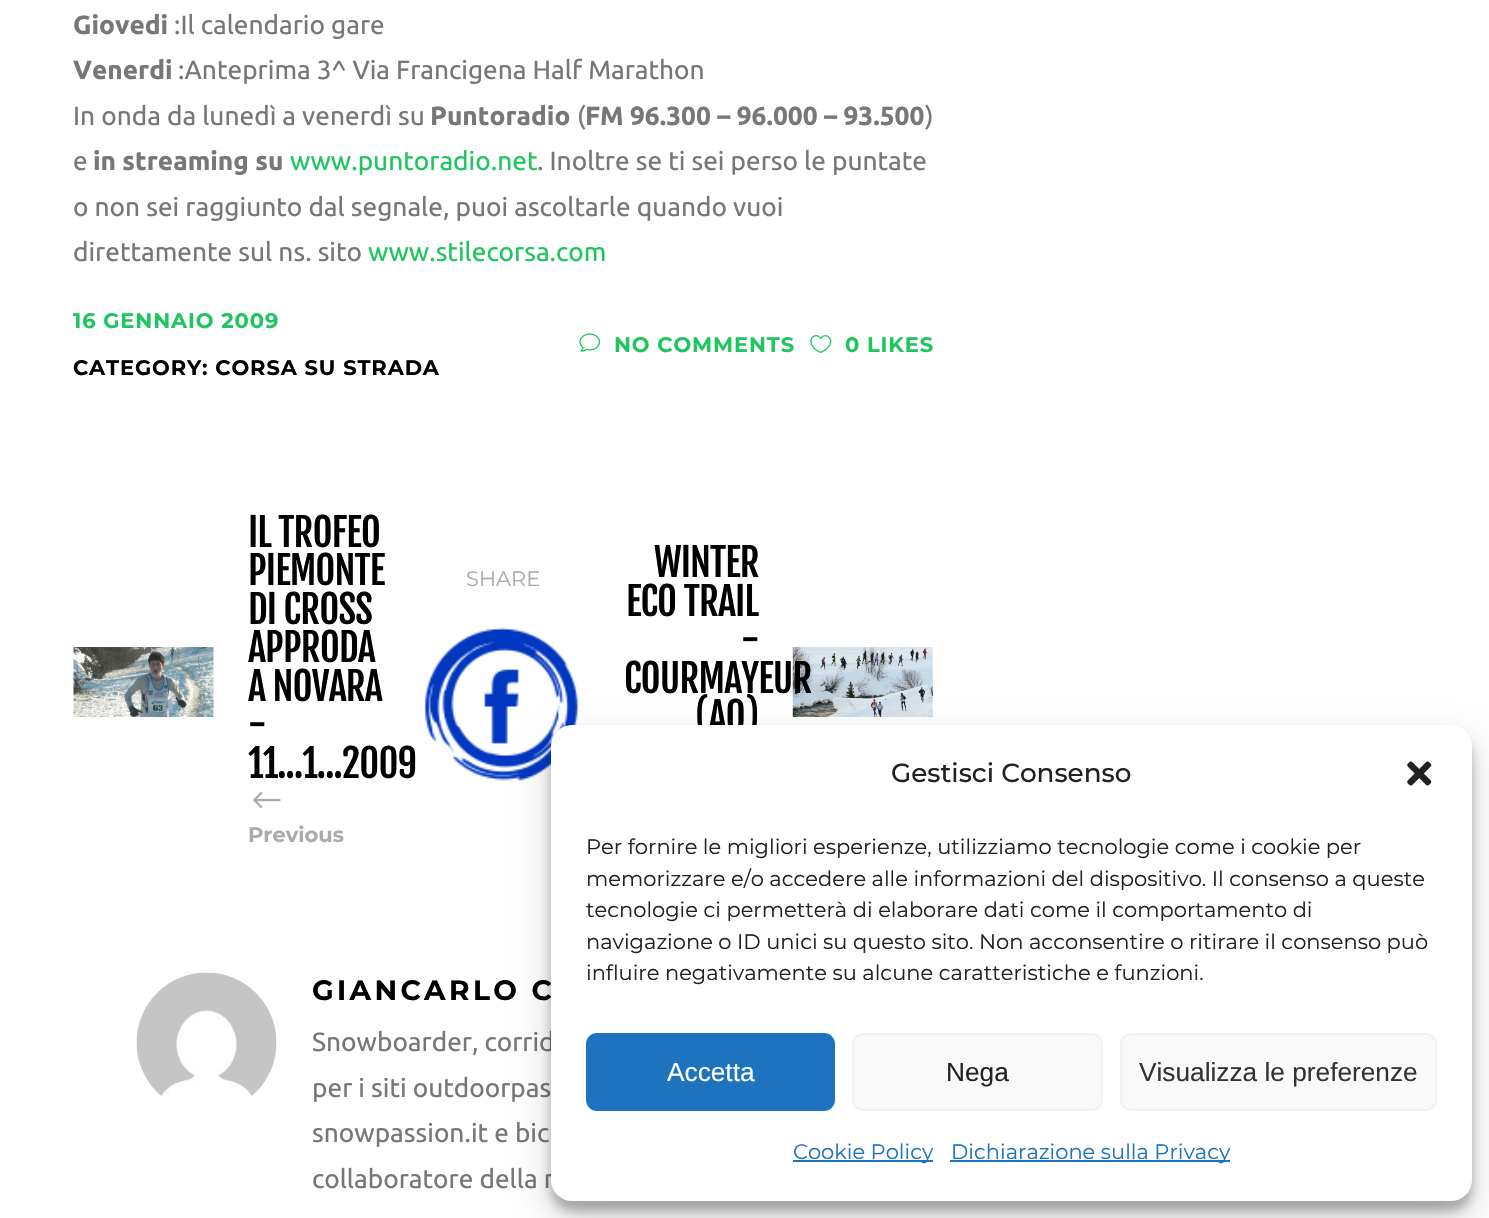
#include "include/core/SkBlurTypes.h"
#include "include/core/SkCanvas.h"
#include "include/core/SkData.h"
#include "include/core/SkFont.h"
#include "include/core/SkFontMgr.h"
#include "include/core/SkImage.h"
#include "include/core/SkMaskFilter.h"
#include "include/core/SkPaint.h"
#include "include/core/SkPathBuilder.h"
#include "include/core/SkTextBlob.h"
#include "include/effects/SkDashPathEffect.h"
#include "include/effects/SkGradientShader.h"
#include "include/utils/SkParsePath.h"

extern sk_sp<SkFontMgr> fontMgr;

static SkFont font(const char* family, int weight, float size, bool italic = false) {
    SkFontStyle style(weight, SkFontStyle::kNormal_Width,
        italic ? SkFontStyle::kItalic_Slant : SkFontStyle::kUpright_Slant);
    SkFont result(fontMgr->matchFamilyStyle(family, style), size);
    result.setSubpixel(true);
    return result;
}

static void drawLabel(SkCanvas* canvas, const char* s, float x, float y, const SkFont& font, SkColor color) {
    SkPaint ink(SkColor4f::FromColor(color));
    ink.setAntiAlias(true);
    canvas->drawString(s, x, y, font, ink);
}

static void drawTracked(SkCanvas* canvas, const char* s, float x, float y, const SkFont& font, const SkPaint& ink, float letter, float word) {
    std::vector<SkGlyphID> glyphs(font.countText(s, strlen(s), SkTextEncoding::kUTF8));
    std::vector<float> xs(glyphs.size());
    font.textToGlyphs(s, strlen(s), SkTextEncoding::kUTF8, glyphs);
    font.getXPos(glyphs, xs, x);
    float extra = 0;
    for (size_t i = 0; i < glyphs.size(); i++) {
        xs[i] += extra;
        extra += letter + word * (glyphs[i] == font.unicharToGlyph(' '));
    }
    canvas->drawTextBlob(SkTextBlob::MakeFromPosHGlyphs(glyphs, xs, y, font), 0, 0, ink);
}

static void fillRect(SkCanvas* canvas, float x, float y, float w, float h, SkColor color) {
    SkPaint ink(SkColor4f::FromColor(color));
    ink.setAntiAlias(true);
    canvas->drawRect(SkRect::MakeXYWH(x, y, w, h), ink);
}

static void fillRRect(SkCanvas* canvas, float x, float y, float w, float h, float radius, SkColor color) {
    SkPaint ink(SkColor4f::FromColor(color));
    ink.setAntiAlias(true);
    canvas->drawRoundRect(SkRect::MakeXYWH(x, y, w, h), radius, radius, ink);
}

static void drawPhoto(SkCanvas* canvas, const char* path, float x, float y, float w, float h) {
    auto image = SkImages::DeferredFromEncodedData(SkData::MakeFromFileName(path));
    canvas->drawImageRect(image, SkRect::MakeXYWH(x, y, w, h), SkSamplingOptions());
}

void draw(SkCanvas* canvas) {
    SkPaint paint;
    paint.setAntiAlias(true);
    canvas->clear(0xFFFFFFFF);
    SkFont font1 = font("Ubuntu", 700, 26.25f);
    drawLabel(canvas, "Giovedi", 73, 34, font1, 0xFF777777);
    SkFont font2 = font("Ubuntu", 400, 26.25f);
    drawLabel(canvas, ":Il calendario gare", 174, 34, font2, 0xFF777777);
    drawLabel(canvas, "Venerdi", 73, 79, font1, 0xFF777777);
    drawLabel(canvas, ":Anteprima 3^ Via Francigena Half Marathon", 178, 79, font2, 0xFF777777);
    drawLabel(canvas, "In onda da lunedì a venerdì su", 73, 125, font2, 0xFF777777);
    drawLabel(canvas, "Puntoradio", 430, 125, font1, 0xFF777777);
    drawLabel(canvas, "(", 577, 125, font2, 0xFF777777);
    drawLabel(canvas, "FM 96.300 – 96.000 – 93.500", 585, 125, font1, 0xFF777777);
    drawLabel(canvas, ")", 925, 125, font2, 0xFF777777);
    drawLabel(canvas, "e", 73, 170, font2, 0xFF777777);
    drawLabel(canvas, "in streaming su", 93, 170, font1, 0xFF777777);
    drawLabel(canvas, "www.puntoradio.net", 290, 170, font2, 0xFF1FC65F);
    drawLabel(canvas, ". Inoltre se ti sei perso le puntate", 537, 170, font2, 0xFF777777);
    drawLabel(canvas, "o non sei raggiunto dal segnale, puoi ascoltarle quando vuoi", 73, 216, font2, 0xFF777777);
    drawLabel(canvas, "direttamente sul ns. sito", 73, 261, font2, 0xFF777777);
    drawLabel(canvas, "www.stilecorsa.com", 368, 261, font2, 0xFF1FC65F);
    SkFont font3 = font("Montserrat", 700, 21);
    paint.setColor(0xFF1FC65F);
    drawTracked(canvas, "16 GENNAIO 2009", 73, 328, font3, paint, 0.9f, 0);
    paint.setColor(0xFF000000);
    drawTracked(canvas, "CATEGORY: CORSA SU STRADA", 73, 375, font3, paint, 0.9f, 0);
    drawPhoto(canvas, "assets/img1.png", 579, 333, 22, 19);
    paint.setColor(0xFF1FC65F);
    drawTracked(canvas, "NO COMMENTS", 614, 352, font3, paint, 0.9f, 0);
    drawPhoto(canvas, "assets/img2.png", 810, 335, 22, 18);
    drawTracked(canvas, "0 LIKES", 845, 352, font3, paint, 0.9f, 0);
    drawPhoto(canvas, "assets/img3.png", 73, 647, 141, 70);
    SkFont font4 = font("Fjalla One", 400, 38.5f);
    paint.setColor(0xFF000000);
    drawTracked(canvas, "IL TROFEO", 248, 547, font4, paint, -0.9f, 0);
    drawTracked(canvas, "PIEMONTE", 248, 585, font4, paint, -0.9f, 0);
    drawTracked(canvas, "DI CROSS", 248, 624, font4, paint, -0.9f, 0);
    drawTracked(canvas, "APPRODA", 248, 662, font4, paint, -0.9f, 0);
    drawTracked(canvas, "A NOVARA", 248, 701, font4, paint, -0.9f, 0);
    drawTracked(canvas, "-", 248, 739, font4, paint, -0.9f, 0);
    drawTracked(canvas, "11...1...2009", 248, 778, font4, paint, -0.9f, 0);
    drawPhoto(canvas, "assets/img4.png", 253, 792, 28, 16);
    drawLabel(canvas, "Previous", 248, 842, font3, 0xFFABABAB);
    SkFont font5 = font("Montserrat", 400, 21);
    drawLabel(canvas, "SHARE", 466, 586, font5, 0xFFABABAB);
    drawPhoto(canvas, "assets/img5.png", 424, 627, 154, 154);
    drawTracked(canvas, "WINTER", 654, 577, font4, paint, -0.9f, 0);
    drawTracked(canvas, "ECO TRAIL", 626, 616, font4, paint, -0.9f, 0);
    drawTracked(canvas, "-", 741, 654, font4, paint, -0.9f, 0);
    drawPhoto(canvas, "assets/img6.png", 792, 647, 141, 70);
    drawTracked(canvas, "COURMAYEUR", 624, 693, font4, paint, -0.9f, 0);
    drawTracked(canvas, "(AO)", 695, 731, font4, paint, -0.9f, 0);
    drawPhoto(canvas, "assets/img7.png", 136, 972, 141, 125);
    SkFont font6 = font("Montserrat", 700, 28);
    drawTracked(canvas, "GIANCARLO C", 312, 1000, font6, paint, 3.4f, 0);
    drawLabel(canvas, "Snowboarder, corrid", 312, 1051, font2, 0xFF777777);
    drawLabel(canvas, "per i siti outdoorpas", 312, 1097, font2, 0xFF777777);
    drawLabel(canvas, "snowpassion.it e bic", 312, 1142, font2, 0xFF777777);
    drawLabel(canvas, "collaboratore della r", 312, 1188, font2, 0xFF777777);
    paint.setColor(0x3B000000);
    paint.setMaskFilter(SkMaskFilter::MakeBlur(kNormal_SkBlurStyle, 5));
    canvas->drawRoundRect(SkRect::MakeXYWH(551, 735, 921, 476), 21, 21, paint);
    paint.setMaskFilter(nullptr);
    paint.setColor(0x30000000);
    paint.setMaskFilter(SkMaskFilter::MakeBlur(kNormal_SkBlurStyle, 17.5f));
    canvas->drawRoundRect(SkRect::MakeXYWH(551, 742, 921, 476), 21, 21, paint);
    paint.setMaskFilter(nullptr);
    fillRRect(canvas, 551, 725, 921, 476, 21, 0xFFFFFFFF);
    SkFont font7 = font("Montserrat", 500, 26.25f);
    drawLabel(canvas, "Gestisci Consenso", 891, 782, font7, 0xFF222222);
    drawPhoto(canvas, "assets/img8.png", 1407, 761, 25, 25);
    drawLabel(canvas, "Per fornire le migliori esperienze, utilizziamo tecnologie come i cookie per", 586, 854, font5, 0xFF222222);
    drawLabel(canvas, "memorizzare e/o accedere alle informazioni del dispositivo. Il consenso a queste", 586, 886, font5, 0xFF222222);
    drawLabel(canvas, "tecnologie ci permetterà di elaborare dati come il comportamento di", 586, 917, font5, 0xFF222222);
    drawLabel(canvas, "navigazione o ID unici su questo sito. Non acconsentire o ritirare il consenso può", 586, 949, font5, 0xFF222222);
    drawLabel(canvas, "influire negativamente su alcune caratteristiche e funzioni.", 586, 980, font5, 0xFF222222);
    paint.setColor(0xFF1E73BE);
    canvas->drawRoundRect(SkRect::MakeXYWH(587, 1034, 247, 76), 10, 10, paint);
    paint.setStroke(true);
    paint.setStrokeWidth(2);
    canvas->drawRoundRect(SkRect::MakeXYWH(587, 1034, 247, 76), 10, 10, paint);
    SkFont font8 = font("Liberation Sans", 400, 26.25f);
    drawLabel(canvas, "Accetta", 667, 1081, font8, 0xFFFFFFFF);
    paint.setStroke(false);
    paint.setColor(0xFFF9F9F9);
    canvas->drawRoundRect(SkRect::MakeXYWH(853, 1034, 249, 76), 10, 10, paint);
    paint.setStroke(true);
    paint.setColor(0xFFF2F2F2);
    canvas->drawRoundRect(SkRect::MakeXYWH(853, 1034, 249, 76), 10, 10, paint);
    drawLabel(canvas, "Nega", 946, 1081, font8, 0xFF222222);
    paint.setStroke(false);
    paint.setColor(0xFFF9F9F9);
    canvas->drawRoundRect(SkRect::MakeXYWH(1121, 1034, 315, 76), 10, 10, paint);
    paint.setStroke(true);
    paint.setColor(0xFFF2F2F2);
    canvas->drawRoundRect(SkRect::MakeXYWH(1121, 1034, 315, 76), 10, 10, paint);
    drawLabel(canvas, "Visualizza le preferenze", 1139, 1081, font8, 0xFF333333);
    fillRect(canvas, 793, 1160, 140, 2, 0xFF1E73BE);
    drawLabel(canvas, "Cookie Policy", 793, 1159, font5, 0xFF1E73BE);
    fillRect(canvas, 950, 1160, 280, 2, 0xFF1E73BE);
    drawLabel(canvas, "Dichiarazione sulla Privacy", 951, 1159, font5, 0xFF1E73BE);
}
